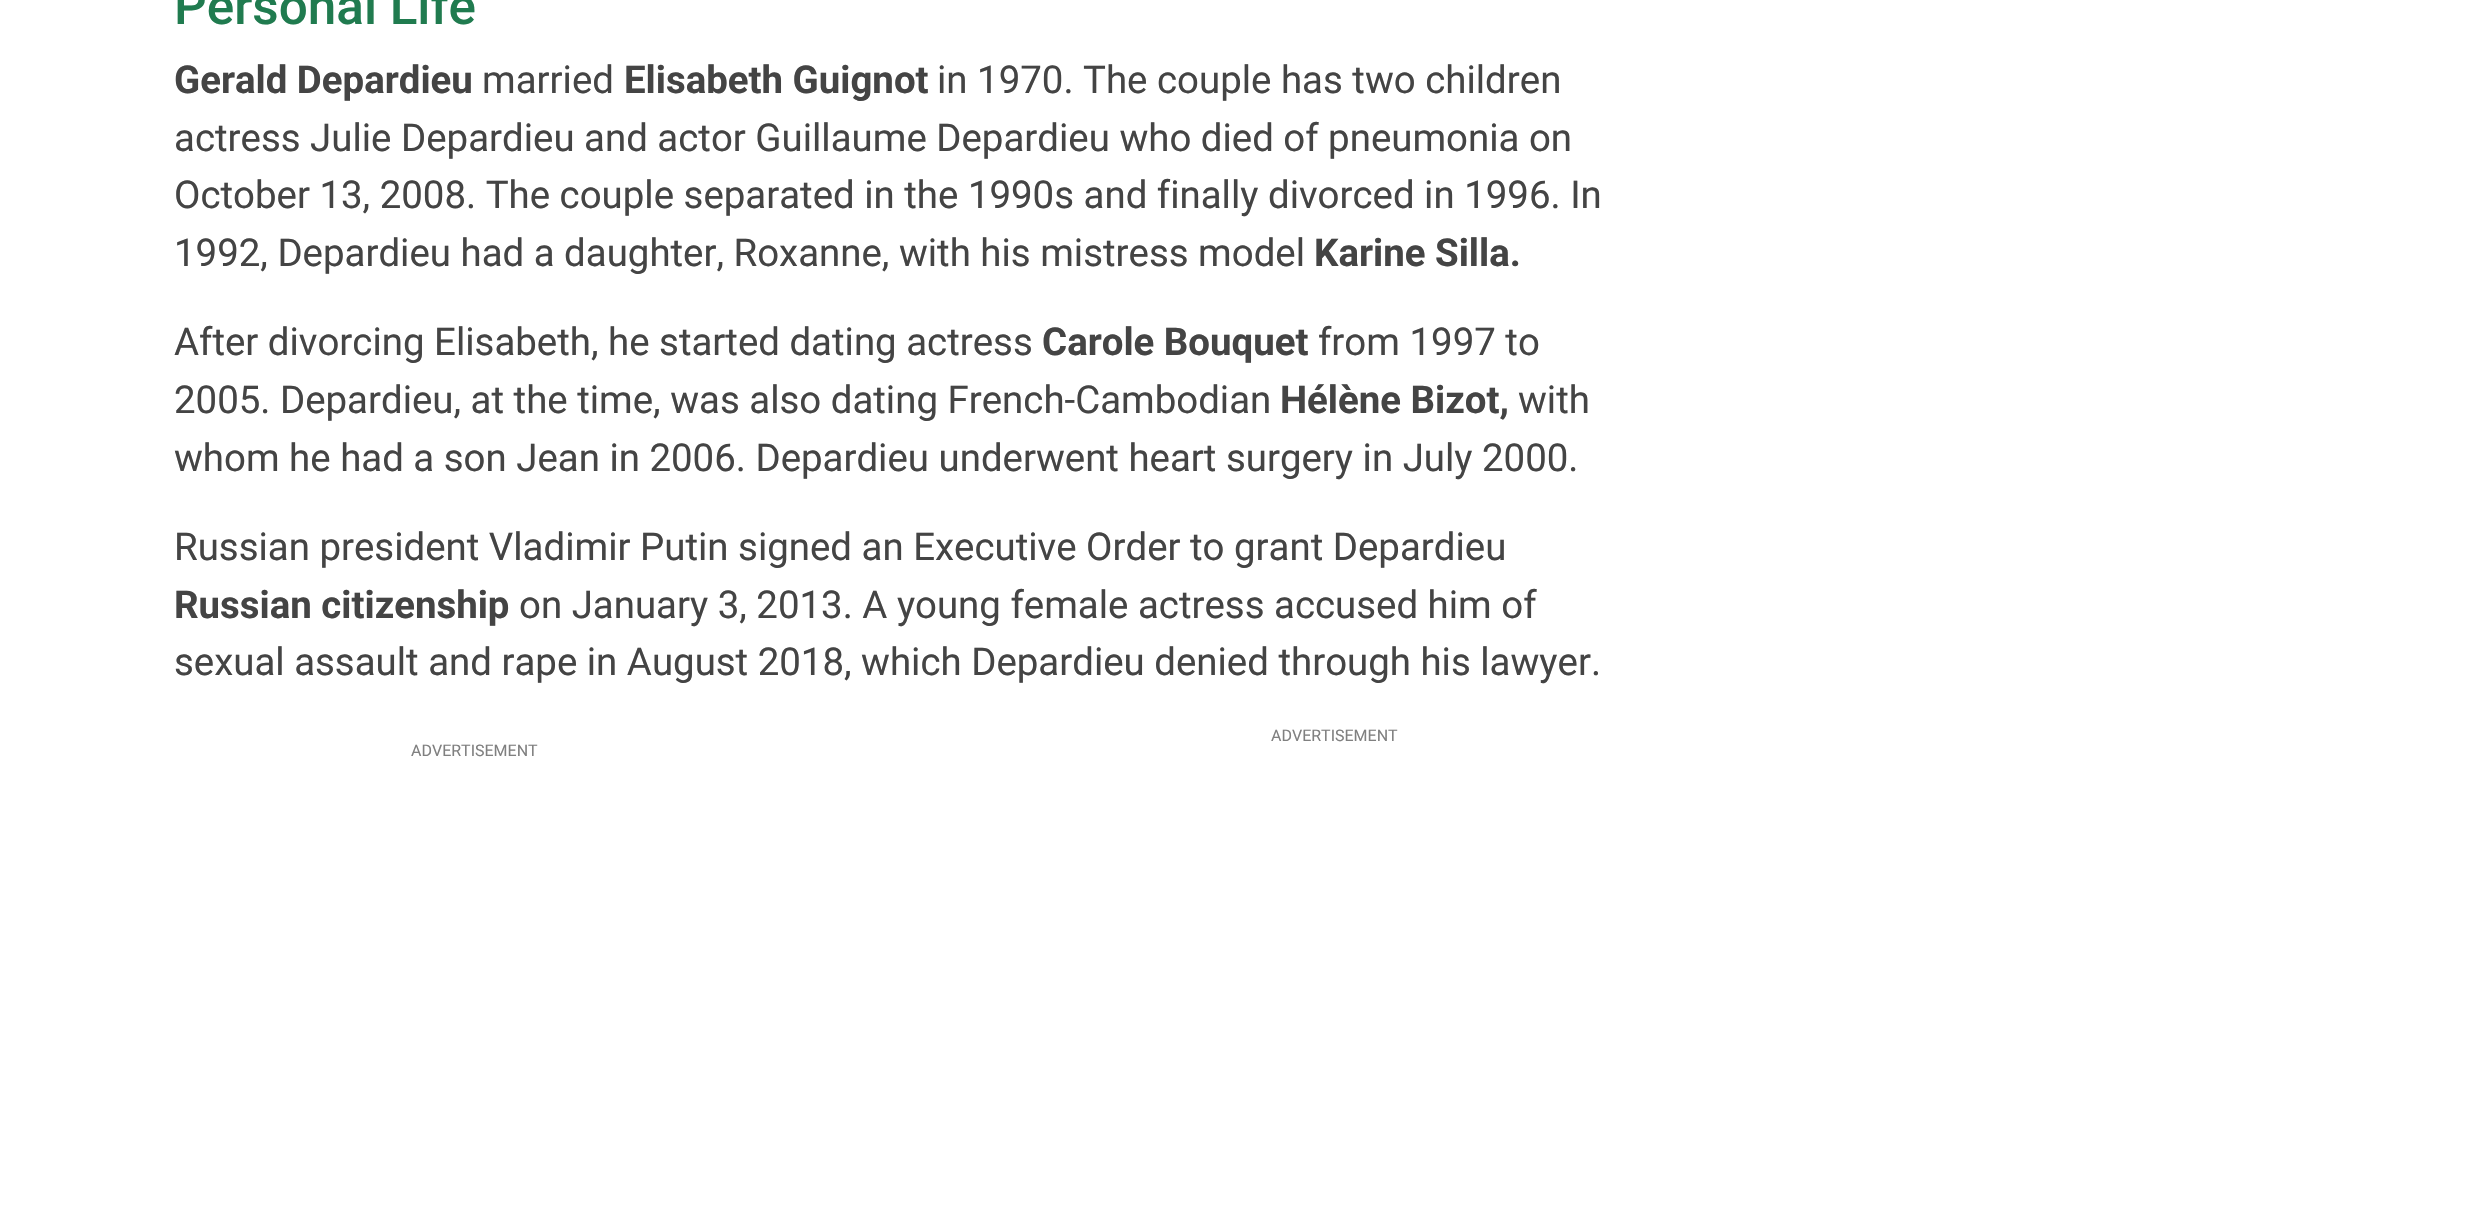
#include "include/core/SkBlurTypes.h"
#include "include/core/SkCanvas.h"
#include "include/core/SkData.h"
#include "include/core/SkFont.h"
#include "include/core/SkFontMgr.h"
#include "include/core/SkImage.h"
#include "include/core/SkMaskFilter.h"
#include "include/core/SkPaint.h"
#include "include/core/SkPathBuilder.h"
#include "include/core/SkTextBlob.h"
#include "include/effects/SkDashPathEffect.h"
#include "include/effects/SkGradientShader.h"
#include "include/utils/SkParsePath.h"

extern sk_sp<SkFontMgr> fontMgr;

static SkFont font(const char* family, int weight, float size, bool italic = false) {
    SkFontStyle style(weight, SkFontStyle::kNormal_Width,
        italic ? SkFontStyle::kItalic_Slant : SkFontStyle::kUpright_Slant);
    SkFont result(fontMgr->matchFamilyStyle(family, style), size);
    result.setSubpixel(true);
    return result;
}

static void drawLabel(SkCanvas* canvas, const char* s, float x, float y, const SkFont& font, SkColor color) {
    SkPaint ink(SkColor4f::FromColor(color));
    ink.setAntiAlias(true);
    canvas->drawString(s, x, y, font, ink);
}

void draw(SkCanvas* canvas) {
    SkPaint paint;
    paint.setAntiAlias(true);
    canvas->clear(0xFFFFFFFF);
    SkFont font1 = font("Roboto", 500, 51.25f);
    drawLabel(canvas, "Personal Life", 174, 24, font1, 0xFF207B4F);
    SkFont font2 = font("Roboto", 700, 38.4f);
    drawLabel(canvas, "Gerald Depardieu", 174, 93, font2, 0xFF444444);
    SkFont font3 = font("Roboto", 400, 38.4f);
    drawLabel(canvas, "married", 482, 93, font3, 0xFF444444);
    drawLabel(canvas, "Elisabeth Guignot", 624, 93, font2, 0xFF444444);
    drawLabel(canvas, "in 1970. The couple has two children", 937, 93, font3, 0xFF444444);
    drawLabel(canvas, "actress Julie Depardieu and actor Guillaume Depardieu who died of pneumonia on", 174, 151, font3, 0xFF444444);
    drawLabel(canvas, "October 13, 2008. The couple separated in the 1990s and finally divorced in 1996. In", 174, 208, font3, 0xFF444444);
    drawLabel(canvas, "1992, Depardieu had a daughter, Roxanne, with his mistress model", 174, 266, font3, 0xFF444444);
    drawLabel(canvas, "Karine Silla.", 1314, 266, font2, 0xFF444444);
    drawLabel(canvas, "After divorcing Elisabeth, he started dating actress", 174, 355, font3, 0xFF444444);
    drawLabel(canvas, "Carole Bouquet", 1042, 355, font2, 0xFF444444);
    drawLabel(canvas, "from 1997 to", 1318, 355, font3, 0xFF444444);
    drawLabel(canvas, "2005. Depardieu, at the time, was also dating French-Cambodian", 174, 413, font3, 0xFF444444);
    drawLabel(canvas, "Hélène Bizot,", 1280, 413, font2, 0xFF444444);
    drawLabel(canvas, "with", 1518, 413, font3, 0xFF444444);
    drawLabel(canvas, "whom he had a son Jean in 2006. Depardieu underwent heart surgery in July 2000.", 174, 471, font3, 0xFF444444);
    drawLabel(canvas, "Russian president Vladimir Putin signed an Executive Order to grant Depardieu", 174, 560, font3, 0xFF444444);
    drawLabel(canvas, "Russian citizenship", 174, 618, font2, 0xFF444444);
    drawLabel(canvas, "on January 3, 2013. A young female actress accused him of", 519, 618, font3, 0xFF444444);
    drawLabel(canvas, "sexual assault and rape in August 2018, which Depardieu denied through his lawyer.", 174, 675, font3, 0xFF444444);
    SkFont font4 = font("Roboto", 400, 16);
    drawLabel(canvas, "ADVERTISEMENT", 1271, 741, font4, 0xFF808080);
    drawLabel(canvas, "ADVERTISEMENT", 411, 756, font4, 0xFF808080);
}
